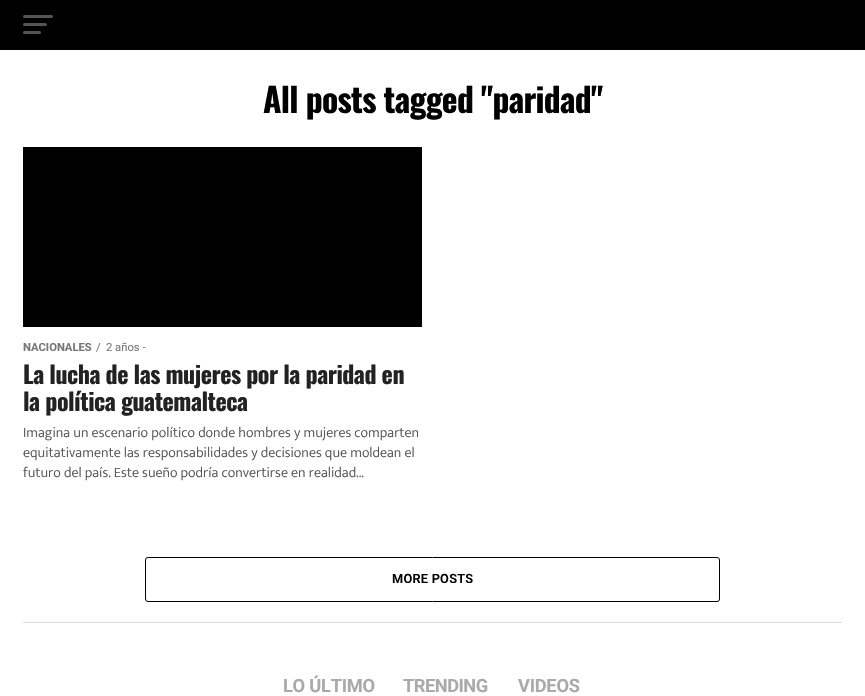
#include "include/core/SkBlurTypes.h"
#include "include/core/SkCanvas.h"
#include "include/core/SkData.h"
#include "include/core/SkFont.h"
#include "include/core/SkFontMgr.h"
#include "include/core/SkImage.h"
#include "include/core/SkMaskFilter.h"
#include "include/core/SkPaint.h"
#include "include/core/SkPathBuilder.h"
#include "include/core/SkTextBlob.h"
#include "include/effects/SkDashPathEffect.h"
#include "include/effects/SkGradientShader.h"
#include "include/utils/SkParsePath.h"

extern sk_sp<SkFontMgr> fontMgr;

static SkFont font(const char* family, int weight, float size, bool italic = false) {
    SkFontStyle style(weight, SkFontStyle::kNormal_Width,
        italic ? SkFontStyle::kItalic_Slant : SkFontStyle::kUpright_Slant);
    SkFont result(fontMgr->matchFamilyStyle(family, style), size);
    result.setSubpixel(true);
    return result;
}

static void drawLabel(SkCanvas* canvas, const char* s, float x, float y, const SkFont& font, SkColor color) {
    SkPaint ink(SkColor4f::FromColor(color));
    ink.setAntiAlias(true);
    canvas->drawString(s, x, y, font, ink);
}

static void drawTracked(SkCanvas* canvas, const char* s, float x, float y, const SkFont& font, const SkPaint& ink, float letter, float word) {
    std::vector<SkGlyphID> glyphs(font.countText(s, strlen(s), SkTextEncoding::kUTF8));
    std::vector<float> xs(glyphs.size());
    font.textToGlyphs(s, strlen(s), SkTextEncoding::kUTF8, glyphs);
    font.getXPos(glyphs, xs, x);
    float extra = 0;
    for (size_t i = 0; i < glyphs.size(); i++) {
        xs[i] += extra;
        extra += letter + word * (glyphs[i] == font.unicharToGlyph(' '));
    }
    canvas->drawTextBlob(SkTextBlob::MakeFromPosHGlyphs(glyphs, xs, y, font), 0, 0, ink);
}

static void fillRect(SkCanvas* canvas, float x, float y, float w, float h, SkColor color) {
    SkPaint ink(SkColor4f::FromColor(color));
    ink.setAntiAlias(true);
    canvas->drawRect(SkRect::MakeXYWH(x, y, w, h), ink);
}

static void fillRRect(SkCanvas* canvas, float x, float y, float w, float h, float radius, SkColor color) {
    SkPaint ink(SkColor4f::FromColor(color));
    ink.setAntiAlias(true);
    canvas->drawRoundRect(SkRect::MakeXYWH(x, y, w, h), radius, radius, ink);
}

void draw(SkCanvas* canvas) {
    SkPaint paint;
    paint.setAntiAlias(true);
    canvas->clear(0xFFFFFFFF);
    fillRect(canvas, 0, 0, 865, 50, 0xFF000000);
    fillRRect(canvas, 23, 15, 30, 3, 1.5f, 0xFF555555);
    fillRRect(canvas, 23, 23, 24, 3, 1.5f, 0xFF555555);
    fillRRect(canvas, 23, 31, 18, 3, 1.5f, 0xFF555555);
    SkFont font1 = font("Oswald", 700, 33.6f);
    paint.setColor(0xFF000000);
    drawTracked(canvas, "All posts tagged \"paridad\"", 263, 113, font1, paint, -0.7f, 0);
    fillRect(canvas, 23, 147, 399, 180, 0xFF000000);
    SkFont font2 = font("Roboto", 700, 11.25f);
    drawLabel(canvas, "NACIONALES", 23, 351, font2, 0xFF777777);
    SkFont font3 = font("Roboto", 400, 11.25f);
    drawLabel(canvas, "/", 96, 351, font3, 0xFF777777);
    drawLabel(canvas, "2 años -", 106, 351, font3, 0xFF777777);
    SkFont font4 = font("Oswald", 700, 24);
    paint.setColor(0xFF222222);
    drawTracked(canvas, "La lucha de las mujeres por la paridad en", 23, 384, font4, paint, -0.5f, 0);
    drawTracked(canvas, "la política guatemalteca", 23, 411, font4, paint, -0.5f, 0);
    SkFont font5 = font("Mukta", 300, 14.4f);
    drawLabel(canvas, "Imagina un escenario político donde hombres y mujeres comparten", 23, 437, font5, 0xFF555555);
    drawLabel(canvas, "equitativamente las responsabilidades y decisiones que moldean el", 23, 457, font5, 0xFF555555);
    drawLabel(canvas, "futuro del país. Este sueño podría convertirse en realidad...", 23, 477, font5, 0xFF555555);
    paint.setStroke(true);
    paint.setStrokeWidth(1);
    paint.setColor(0xFF000000);
    canvas->drawRoundRect(SkRect::MakeXYWH(145.5f, 557.5f, 574, 44), 2.5f, 2.5f, paint);
    SkFont font6 = font("Roboto", 600, 12.75f);
    paint.setStroke(false);
    drawTracked(canvas, "MORE POSTS", 392, 583, font6, paint, 0.25f, 0);
    fillRect(canvas, 23, 622, 819, 1, 0xFFDDDDDD);
    SkFont font7 = font("Roboto", 700, 18.25f);
    paint.setColor(0xFFAAAAAA);
    drawTracked(canvas, "LO ÚLTIMO", 283, 692, font7, paint, -0.25f, 0);
    drawTracked(canvas, "TRENDING", 403, 692, font7, paint, -0.5f, 0);
    drawTracked(canvas, "VIDEOS", 518, 692, font7, paint, -0.25f, 0);
}
